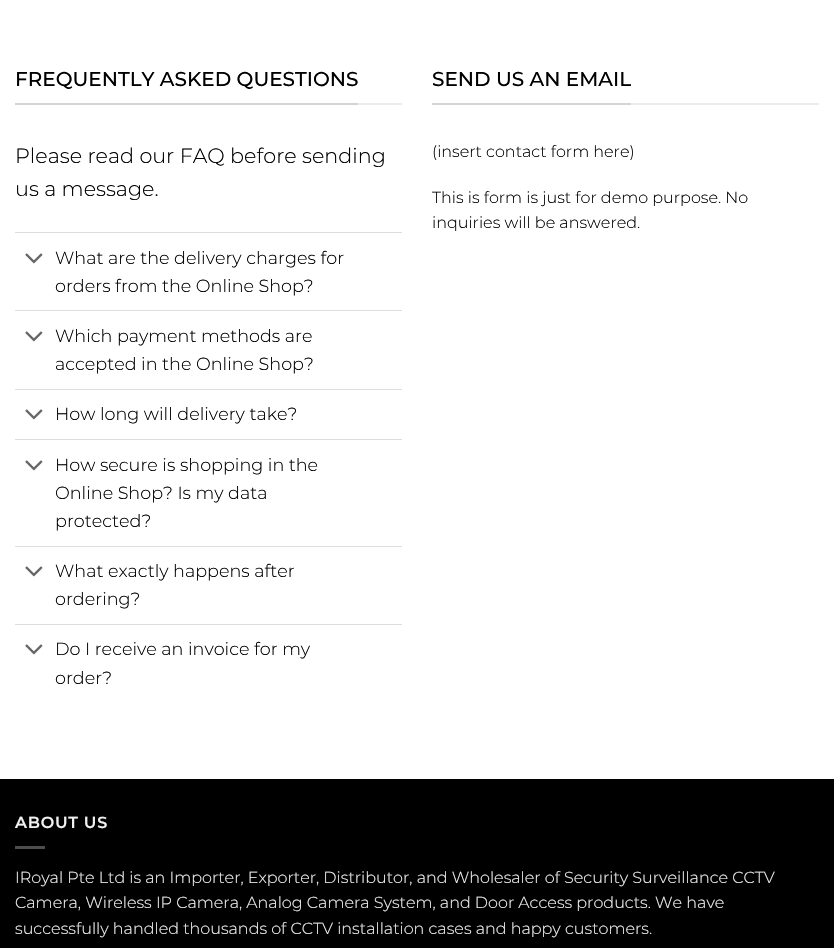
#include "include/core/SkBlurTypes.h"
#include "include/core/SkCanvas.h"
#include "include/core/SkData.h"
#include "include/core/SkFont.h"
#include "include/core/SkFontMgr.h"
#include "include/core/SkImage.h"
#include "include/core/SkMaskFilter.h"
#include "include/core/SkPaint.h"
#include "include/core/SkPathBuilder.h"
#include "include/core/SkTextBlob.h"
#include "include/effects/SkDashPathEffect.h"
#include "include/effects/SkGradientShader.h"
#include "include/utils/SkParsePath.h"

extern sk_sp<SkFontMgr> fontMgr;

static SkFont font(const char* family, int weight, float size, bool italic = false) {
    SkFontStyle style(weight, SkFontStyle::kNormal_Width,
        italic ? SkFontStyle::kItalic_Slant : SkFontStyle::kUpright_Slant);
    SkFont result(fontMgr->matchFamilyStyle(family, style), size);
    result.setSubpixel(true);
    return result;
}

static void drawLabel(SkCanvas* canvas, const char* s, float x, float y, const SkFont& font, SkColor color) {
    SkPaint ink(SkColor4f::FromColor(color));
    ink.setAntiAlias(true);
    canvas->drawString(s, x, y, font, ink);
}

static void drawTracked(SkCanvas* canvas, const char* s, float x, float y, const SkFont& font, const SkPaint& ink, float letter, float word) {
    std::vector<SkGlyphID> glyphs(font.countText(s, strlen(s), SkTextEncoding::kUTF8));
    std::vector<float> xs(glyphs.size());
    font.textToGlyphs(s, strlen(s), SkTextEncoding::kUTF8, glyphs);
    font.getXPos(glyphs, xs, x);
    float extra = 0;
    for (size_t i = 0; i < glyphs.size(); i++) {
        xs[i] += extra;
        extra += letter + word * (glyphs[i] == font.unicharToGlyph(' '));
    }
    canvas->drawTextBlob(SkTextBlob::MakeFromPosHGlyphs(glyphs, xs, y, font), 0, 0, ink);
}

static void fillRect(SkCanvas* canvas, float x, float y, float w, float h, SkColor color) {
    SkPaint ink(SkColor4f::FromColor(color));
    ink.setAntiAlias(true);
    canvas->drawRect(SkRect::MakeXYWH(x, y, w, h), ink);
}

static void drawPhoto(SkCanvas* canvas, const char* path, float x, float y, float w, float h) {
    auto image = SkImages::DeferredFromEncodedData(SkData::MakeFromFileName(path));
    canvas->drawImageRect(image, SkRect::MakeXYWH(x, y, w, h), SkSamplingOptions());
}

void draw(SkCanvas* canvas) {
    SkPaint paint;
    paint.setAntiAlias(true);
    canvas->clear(0xFFFFFFFF);
    fillRect(canvas, 358, 103, 44, 2, 0xFFECECEC);
    fillRect(canvas, 15, 103, 343, 2, 0xFFD4D4D4);
    SkFont font1 = font("Montserrat", 500, 20);
    drawLabel(canvas, "FREQUENTLY ASKED QUESTIONS", 15, 86, font1, 0xFF000000);
    SkFont font2 = font("Montserrat", 300, 20.75f);
    drawLabel(canvas, "Please read our FAQ before sending", 15, 163, font2, 0xFF000000);
    drawLabel(canvas, "us a message.", 15, 196, font2, 0xFF000000);
    fillRect(canvas, 15, 232, 387, 1, 0xFFDDDDDD);
    drawPhoto(canvas, "assets/img1.png", 25, 253, 18, 11);
    SkFont font3 = font("Montserrat", 300, 17.6f);
    drawLabel(canvas, "What are the delivery charges for", 55, 264, font3, 0xFF000000);
    drawLabel(canvas, "orders from the Online Shop?", 55, 292, font3, 0xFF000000);
    fillRect(canvas, 15, 310, 387, 1, 0xFFDDDDDD);
    drawPhoto(canvas, "assets/img1.png", 25, 331, 18, 11);
    drawLabel(canvas, "Which payment methods are", 55, 342, font3, 0xFF000000);
    drawLabel(canvas, "accepted in the Online Shop?", 55, 370, font3, 0xFF000000);
    fillRect(canvas, 15, 389, 387, 1, 0xFFDDDDDD);
    drawPhoto(canvas, "assets/img1.png", 25, 409, 18, 11);
    drawLabel(canvas, "How long will delivery take?", 55, 420, font3, 0xFF000000);
    fillRect(canvas, 15, 439, 387, 1, 0xFFDDDDDD);
    drawPhoto(canvas, "assets/img1.png", 25, 460, 18, 11);
    drawLabel(canvas, "How secure is shopping in the", 55, 471, font3, 0xFF000000);
    drawLabel(canvas, "Online Shop? Is my data", 55, 499, font3, 0xFF000000);
    drawLabel(canvas, "protected?", 55, 527, font3, 0xFF000000);
    fillRect(canvas, 15, 546, 387, 1, 0xFFDDDDDD);
    drawPhoto(canvas, "assets/img1.png", 25, 566, 18, 11);
    drawLabel(canvas, "What exactly happens after", 55, 577, font3, 0xFF000000);
    drawLabel(canvas, "ordering?", 55, 605, font3, 0xFF000000);
    fillRect(canvas, 15, 624, 387, 1, 0xFFDDDDDD);
    drawPhoto(canvas, "assets/img1.png", 25, 644, 18, 11);
    drawLabel(canvas, "Do I receive an invoice for my", 55, 655, font3, 0xFF000000);
    drawLabel(canvas, "order?", 55, 684, font3, 0xFF000000);
    fillRect(canvas, 631, 103, 188, 2, 0xFFECECEC);
    fillRect(canvas, 432, 103, 199, 2, 0xFFD4D4D4);
    drawLabel(canvas, "SEND US AN EMAIL", 432, 86, font1, 0xFF000000);
    SkFont font4 = font("Montserrat", 300, 16);
    drawLabel(canvas, "(insert contact form here)", 432, 157, font4, 0xFF000000);
    drawLabel(canvas, "This is form is just for demo purpose. No", 432, 203, font4, 0xFF000000);
    drawLabel(canvas, "inquiries will be answered.", 432, 228, font4, 0xFF000000);
    fillRect(canvas, 0, 779, 834, 169, 0xFF000000);
    SkFont font5 = font("Montserrat", 600, 16);
    paint.setColor(0xFFF1F1F1);
    drawTracked(canvas, "ABOUT US", 15, 828, font5, paint, 0.75f, 0);
    fillRect(canvas, 15, 846, 30, 3, 0xFF4D4D4D);
    drawLabel(canvas, "IRoyal Pte Ltd is an Importer, Exporter, Distributor, and Wholesaler of Security Surveillance CCTV", 15, 883, font4, 0xFFF1F1F1);
    drawLabel(canvas, "Camera, Wireless IP Camera, Analog Camera System, and Door Access products. We have", 15, 908, font4, 0xFFF1F1F1);
    drawLabel(canvas, "successfully handled thousands of CCTV installation cases and happy customers.", 15, 934, font4, 0xFFF1F1F1);
}
